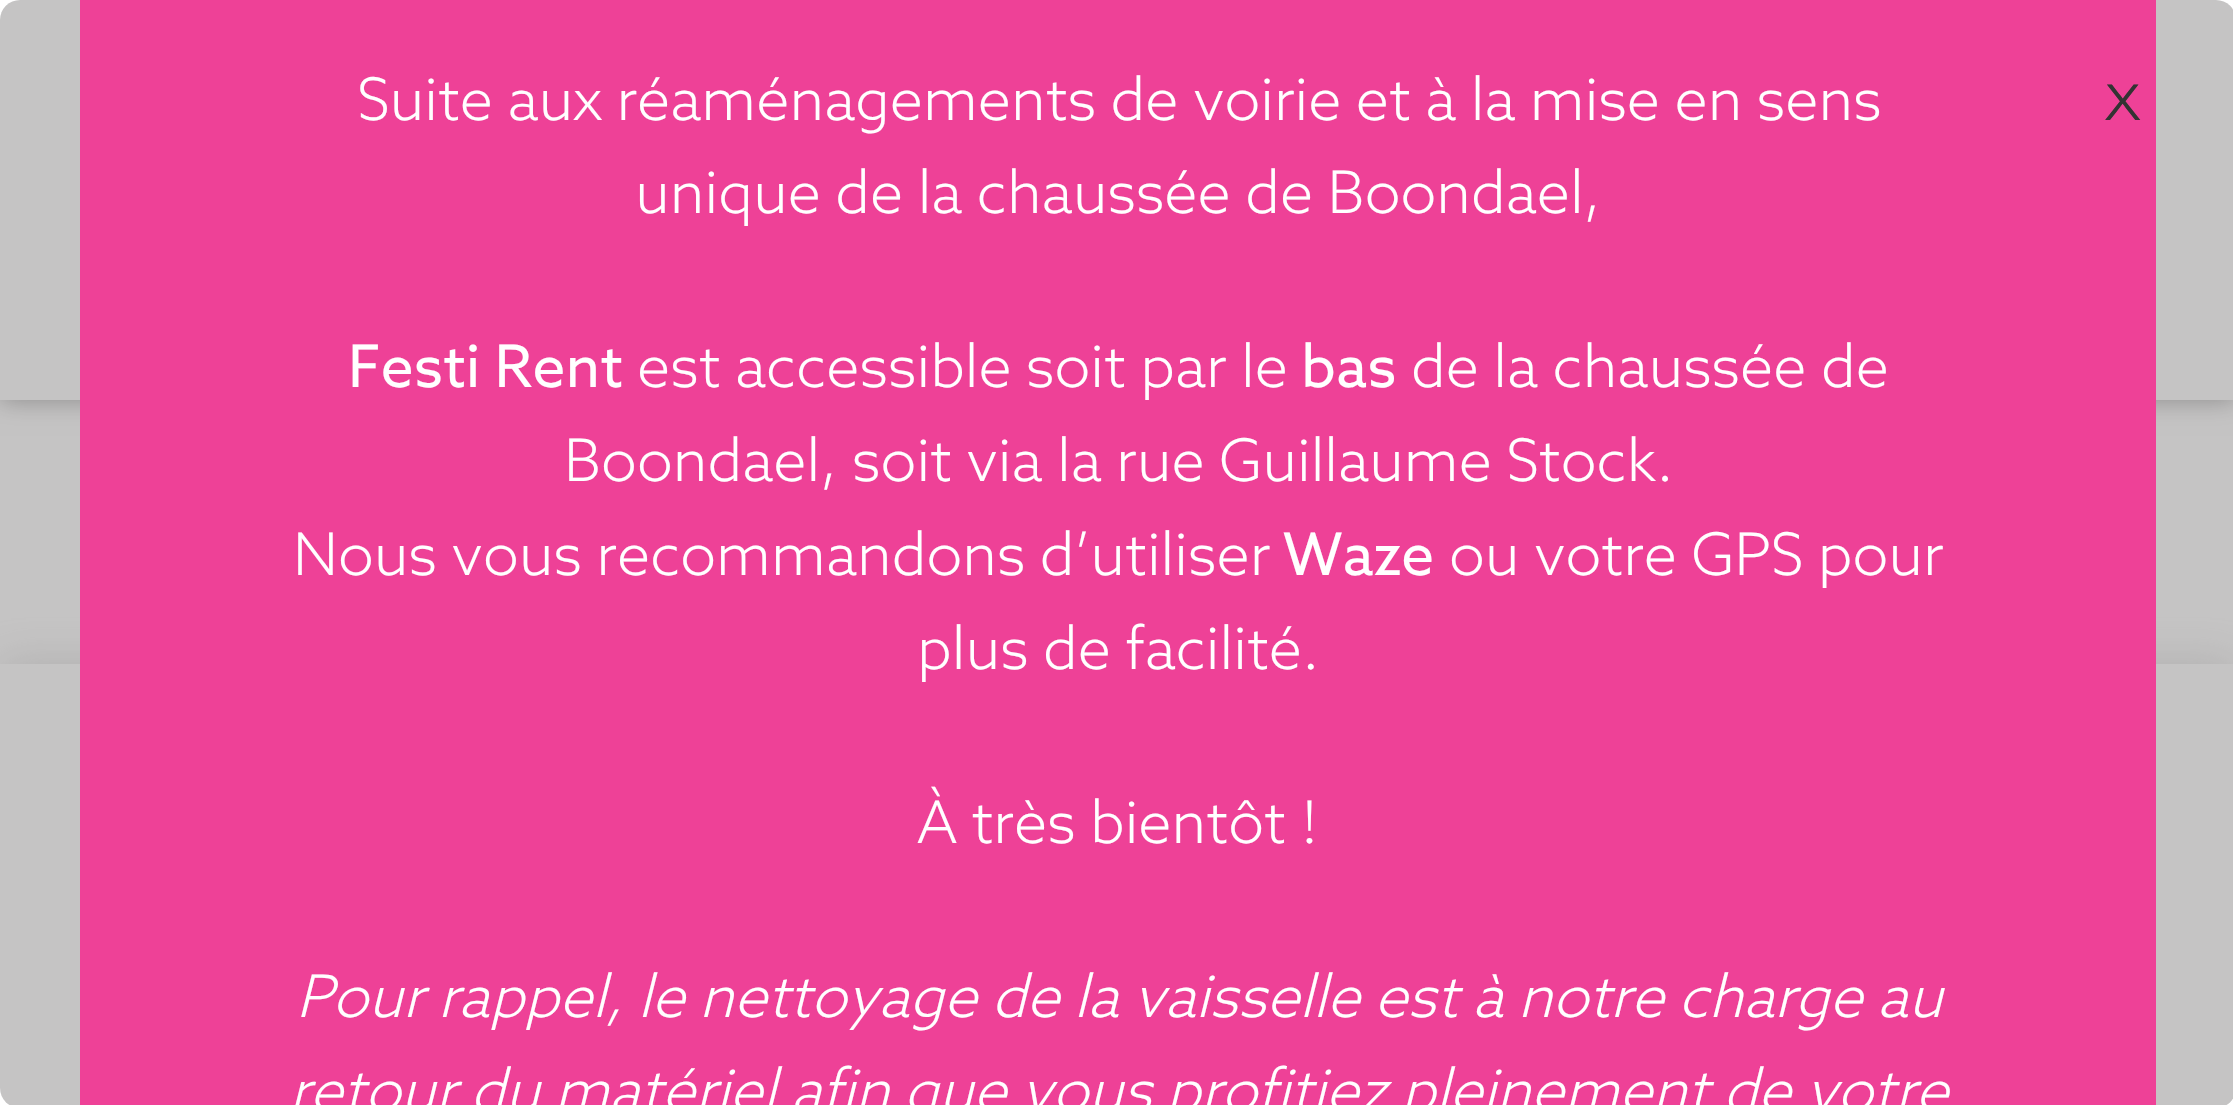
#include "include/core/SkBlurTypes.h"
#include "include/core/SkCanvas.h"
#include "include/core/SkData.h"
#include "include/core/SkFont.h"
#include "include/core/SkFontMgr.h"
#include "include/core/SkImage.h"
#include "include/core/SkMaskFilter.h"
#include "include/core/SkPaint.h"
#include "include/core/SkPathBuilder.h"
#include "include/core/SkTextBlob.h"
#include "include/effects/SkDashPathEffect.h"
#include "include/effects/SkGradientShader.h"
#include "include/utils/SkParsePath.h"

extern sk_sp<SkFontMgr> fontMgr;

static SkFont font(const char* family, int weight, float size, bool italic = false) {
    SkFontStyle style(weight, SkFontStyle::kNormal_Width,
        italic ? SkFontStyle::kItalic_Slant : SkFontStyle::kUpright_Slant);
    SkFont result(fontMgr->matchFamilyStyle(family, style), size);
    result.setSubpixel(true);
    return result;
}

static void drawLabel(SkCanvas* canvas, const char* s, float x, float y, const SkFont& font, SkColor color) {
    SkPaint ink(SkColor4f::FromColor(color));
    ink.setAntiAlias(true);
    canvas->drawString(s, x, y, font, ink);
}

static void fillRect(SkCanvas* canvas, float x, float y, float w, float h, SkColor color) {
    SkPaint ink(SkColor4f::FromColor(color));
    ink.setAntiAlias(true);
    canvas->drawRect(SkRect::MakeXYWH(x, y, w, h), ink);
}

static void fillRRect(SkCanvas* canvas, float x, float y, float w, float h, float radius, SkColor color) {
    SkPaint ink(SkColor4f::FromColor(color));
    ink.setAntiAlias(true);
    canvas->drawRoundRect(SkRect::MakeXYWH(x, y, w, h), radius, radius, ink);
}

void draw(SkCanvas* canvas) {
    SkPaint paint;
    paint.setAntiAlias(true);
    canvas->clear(0xFFFFFFFF);
    paint.setColor(0x4D000000);
    paint.setMaskFilter(SkMaskFilter::MakeBlur(kNormal_SkBlurStyle, 12));
    canvas->drawRect(SkRect::MakeXYWH(0, 0, 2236, 400), paint);
    paint.setMaskFilter(nullptr);
    fillRect(canvas, 0, 0, 2233, 400, 0xFFFFFFFF);
    paint.setColor(0x4DACABAB);
    paint.setMaskFilter(SkMaskFilter::MakeBlur(kNormal_SkBlurStyle, 20));
    canvas->drawRect(SkRect::MakeXYWH(0, 660, 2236, 444), paint);
    paint.setMaskFilter(nullptr);
    fillRect(canvas, 0, 664, 2233, 441, 0xFFFFFFFF);
    fillRRect(canvas, 0, 0, 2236, 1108, 20, 0x40161515);
    fillRect(canvas, 80, 0, 2076, 1105, 0xFFEE4197);
    SkFont font1 = font("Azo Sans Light", 300, 58.7f);
    drawLabel(canvas, "Suite aux réaménagements de voirie et à la mise en sens", 357, 120, font1, 0xFFFFFFFF);
    drawLabel(canvas, "unique de la chaussée de Boondael,", 635, 213, font1, 0xFFFFFFFF);
    SkFont font2 = font("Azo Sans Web", 400, 58.7f);
    drawLabel(canvas, "Festi Rent", 348, 387, font2, 0xFFFFFFFF);
    drawLabel(canvas, "est accessible soit par le", 637, 387, font1, 0xFFFFFFFF);
    drawLabel(canvas, "bas", 1301, 387, font2, 0xFFFFFFFF);
    drawLabel(canvas, "de la chaussée de", 1411, 387, font1, 0xFFFFFFFF);
    drawLabel(canvas, "Boondael, soit via la rue Guillaume Stock.", 564, 481, font1, 0xFFFFFFFF);
    drawLabel(canvas, "Nous vous recommandons d’utiliser", 293, 575, font1, 0xFFFFFFFF);
    drawLabel(canvas, "Waze", 1283, 575, font2, 0xFFFFFFFF);
    drawLabel(canvas, "ou votre GPS pour", 1449, 575, font1, 0xFFFFFFFF);
    drawLabel(canvas, "plus de facilité.", 917, 669, font1, 0xFFFFFFFF);
    drawLabel(canvas, "À très bientôt !", 917, 843, font1, 0xFFFFFFFF);
    SkFont font3 = font("Azo Sans Light", 300, 58.7f, true);
    drawLabel(canvas, "Pour rappel, le nettoyage de la vaisselle est à notre charge au", 296, 1017, font3, 0xFFFFFFFF);
    drawLabel(canvas, "retour du matériel afin que vous profitiez pleinement de votre", 289, 1111, font3, 0xFFFFFFFF);
    SkFont font4 = font("Azo Sans Light", 300, 72);
    drawLabel(canvas, "x", 2105, 120, font4, 0xFF333333);
}
